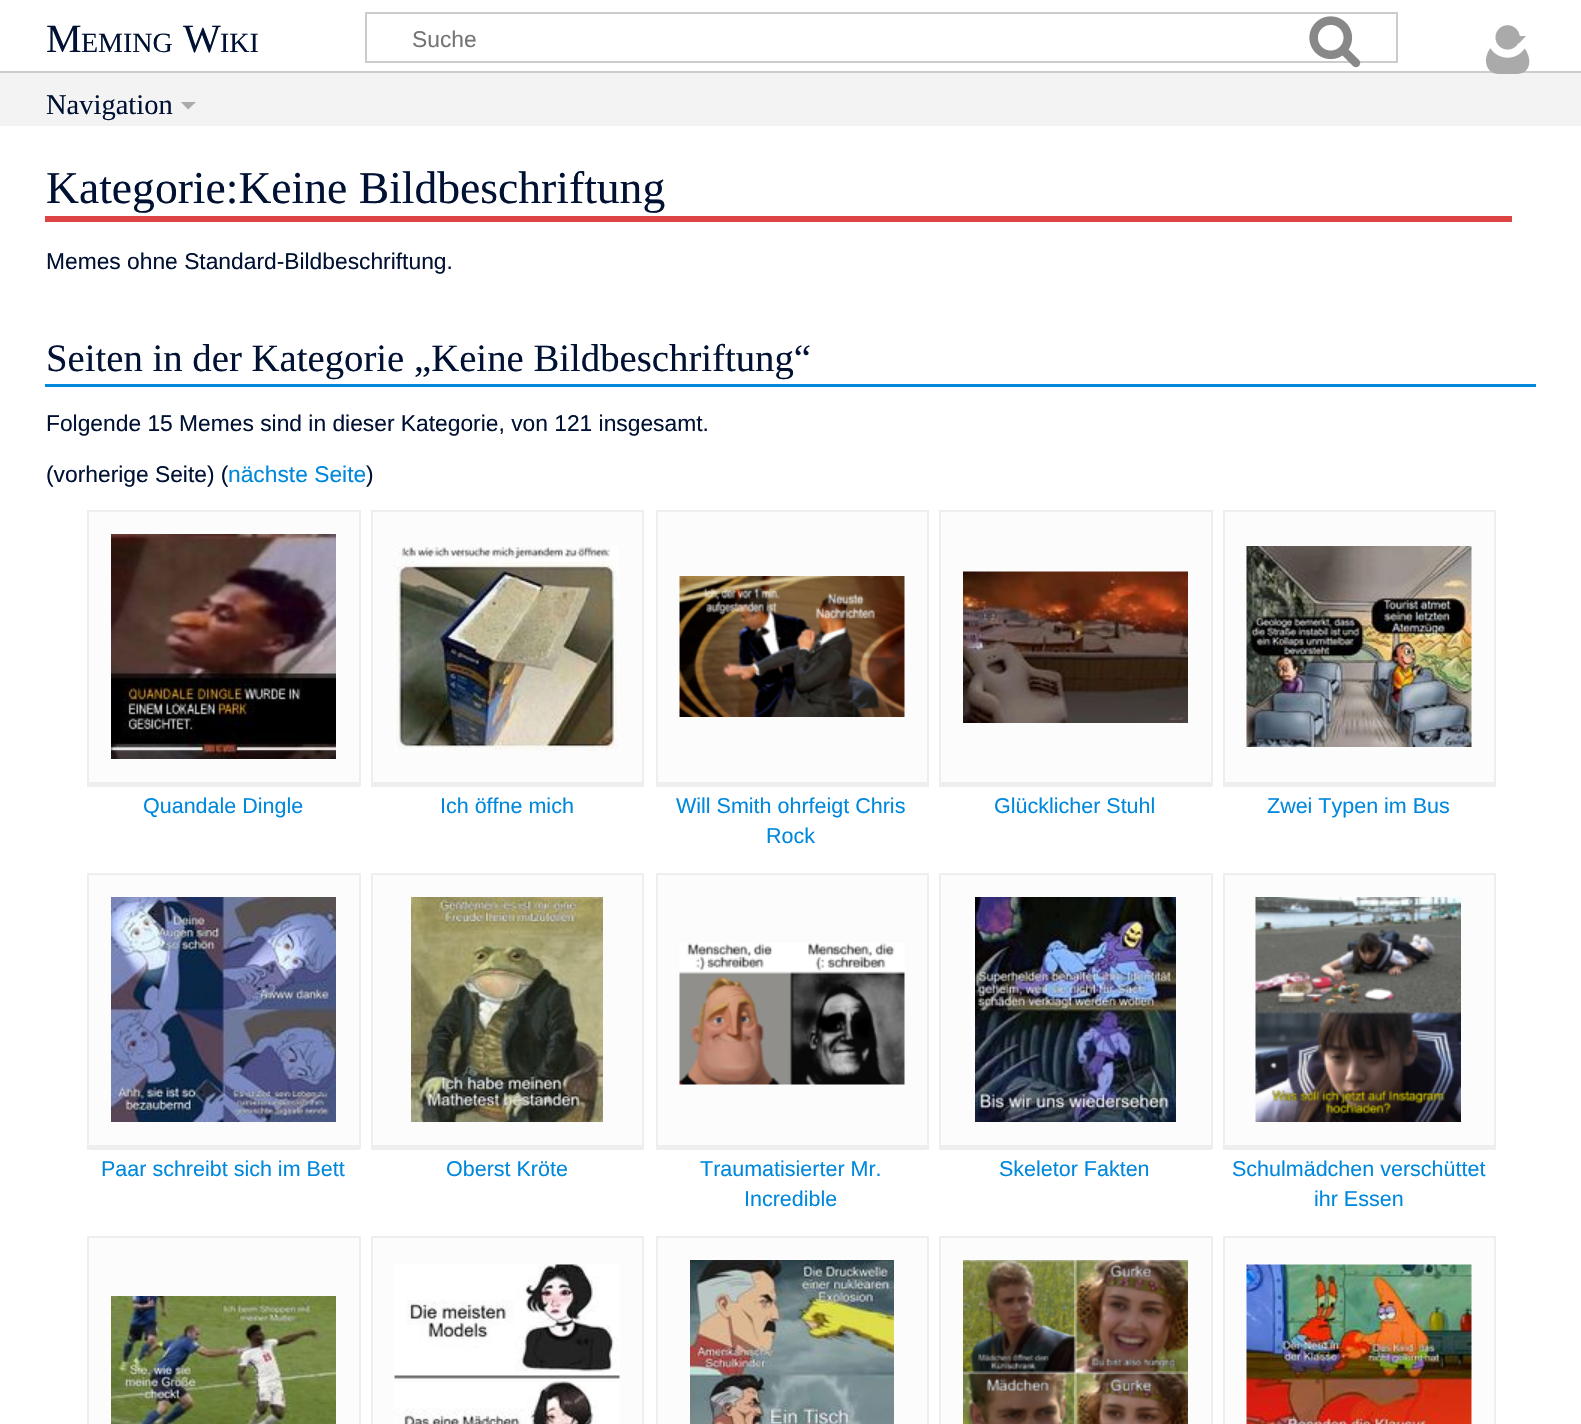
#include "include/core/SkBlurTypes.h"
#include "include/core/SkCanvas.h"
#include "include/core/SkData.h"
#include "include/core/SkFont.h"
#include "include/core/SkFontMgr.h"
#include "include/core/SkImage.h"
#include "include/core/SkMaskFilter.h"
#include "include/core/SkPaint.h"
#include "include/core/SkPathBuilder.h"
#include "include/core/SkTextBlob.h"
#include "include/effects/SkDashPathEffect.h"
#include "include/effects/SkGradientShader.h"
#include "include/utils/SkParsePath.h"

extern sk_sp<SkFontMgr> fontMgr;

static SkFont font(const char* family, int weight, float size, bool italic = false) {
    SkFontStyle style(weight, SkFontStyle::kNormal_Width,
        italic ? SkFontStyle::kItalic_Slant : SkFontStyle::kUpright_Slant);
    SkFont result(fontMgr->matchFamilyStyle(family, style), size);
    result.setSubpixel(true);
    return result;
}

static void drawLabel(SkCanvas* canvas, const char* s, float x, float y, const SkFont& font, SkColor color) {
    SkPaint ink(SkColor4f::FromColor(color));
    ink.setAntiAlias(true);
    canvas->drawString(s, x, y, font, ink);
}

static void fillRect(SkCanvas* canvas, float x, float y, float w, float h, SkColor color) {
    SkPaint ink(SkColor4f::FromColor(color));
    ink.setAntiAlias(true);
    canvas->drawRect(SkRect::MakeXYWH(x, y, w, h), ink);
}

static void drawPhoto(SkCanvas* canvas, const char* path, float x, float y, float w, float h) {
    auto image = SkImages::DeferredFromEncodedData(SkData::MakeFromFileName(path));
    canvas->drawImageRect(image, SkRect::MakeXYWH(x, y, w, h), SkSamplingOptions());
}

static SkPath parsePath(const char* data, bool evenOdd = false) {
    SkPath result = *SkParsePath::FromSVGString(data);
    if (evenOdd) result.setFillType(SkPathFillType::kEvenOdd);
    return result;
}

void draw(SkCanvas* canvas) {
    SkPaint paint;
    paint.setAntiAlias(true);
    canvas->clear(0xFFF3F3F3);
    fillRect(canvas, 0, 0, 1581, 71, 0xFFFFFFFF);
    fillRect(canvas, 0, 71, 1581, 2, 0xFFCCCCCC);
    SkFont font1 = font("Liberation Serif", 400, 40);
    drawLabel(canvas, "M", 46, 52, font1, 0xFF001133);
    SkFont font2 = font("Liberation Serif", 400, 28);
    drawLabel(canvas, "EMING", 81, 52, font2, 0xFF001133);
    drawLabel(canvas, "W", 183, 52, font1, 0xFF001133);
    drawLabel(canvas, "IKI", 220, 52, font2, 0xFF001133);
    paint.setStroke(true);
    paint.setStrokeWidth(2);
    paint.setColor(0xFFCCCCCC);
    canvas->drawRect(SkRect::MakeXYWH(366, 13, 1031, 49), paint);
    SkFont font3 = font("Liberation Sans", 400, 22.8f);
    drawLabel(canvas, "Suche", 412, 47, font3, 0xFF757575);
    drawPhoto(canvas, "assets/img1.png", 1309, 16, 52, 52);
    drawPhoto(canvas, "assets/img2.png", 1486, 25, 44, 49);
    paint.setStroke(false);
    paint.setColor(0xFFAAAAAA);
    canvas->drawPath(parsePath("M1526 36L1519 43.5L1511 36Z"), paint);
    SkFont font4 = font("Liberation Serif", 400, 28.5f);
    drawLabel(canvas, "Navigation", 46, 114, font4, 0xFF001133);
    canvas->drawPath(parsePath("M196 102L188 109.5L181 102Z"), paint);
    fillRect(canvas, 0, 126, 1581, 1298, 0xFFFFFFFF);
    fillRect(canvas, 45, 216, 1467, 6, 0xFFDD4444);
    SkFont font5 = font("Liberation Serif", 400, 45.6f);
    drawLabel(canvas, "Kategorie:Keine Bildbeschriftung", 46, 203, font5, 0xFF001133);
    drawLabel(canvas, "Memes ohne Standard-Bildbeschriftung.", 46, 269, font3, 0xFF001133);
    fillRect(canvas, 45, 384, 1491, 3, 0xFF0088DD);
    SkFont font6 = font("Liberation Serif", 400, 38.75f);
    drawLabel(canvas, "Seiten in der Kategorie „Keine Bildbeschriftung“", 46, 371, font6, 0xFF001133);
    drawLabel(canvas, "Folgende 15 Memes sind in dieser Kategorie, von 121 insgesamt.", 46, 431, font3, 0xFF001133);
    drawLabel(canvas, "(vorherige Seite) (", 46, 482, font3, 0xFF001133);
    drawLabel(canvas, "nächste Seite", 228, 482, font3, 0xFF0088DD);
    drawLabel(canvas, ")", 366, 482, font3, 0xFF001133);
    fillRect(canvas, 89, 512, 270, 270, 0xFFFCFCFC);
    fillRect(canvas, 87, 510, 273, 2, 0xFFEEEEEE);
    fillRect(canvas, 359, 510, 2, 276, 0xFFEEEEEE);
    fillRect(canvas, 87, 782, 273, 5, 0xFFEEEEEE);
    fillRect(canvas, 87, 510, 2, 276, 0xFFEEEEEE);
    drawPhoto(canvas, "assets/img3.png", 111, 534, 225, 225);
    SkFont font7 = font("Liberation Sans", 400, 21.5f);
    drawLabel(canvas, "Quandale Dingle", 143, 813, font7, 0xFF0088DD);
    fillRect(canvas, 373, 512, 269, 270, 0xFFFCFCFC);
    fillRect(canvas, 371, 510, 273, 2, 0xFFEEEEEE);
    fillRect(canvas, 642, 510, 2, 276, 0xFFEEEEEE);
    fillRect(canvas, 371, 782, 273, 5, 0xFFEEEEEE);
    fillRect(canvas, 371, 510, 2, 276, 0xFFEEEEEE);
    drawPhoto(canvas, "assets/img4.png", 394, 546, 225, 205);
    drawLabel(canvas, "Ich öffne mich", 440, 813, font7, 0xFF0088DD);
    fillRect(canvas, 658, 512, 269, 270, 0xFFFCFCFC);
    fillRect(canvas, 656, 510, 273, 2, 0xFFEEEEEE);
    fillRect(canvas, 927, 510, 2, 276, 0xFFEEEEEE);
    fillRect(canvas, 656, 782, 273, 5, 0xFFEEEEEE);
    fillRect(canvas, 656, 510, 2, 276, 0xFFEEEEEE);
    drawPhoto(canvas, "assets/img5.png", 679, 576, 226, 141);
    drawLabel(canvas, "Will Smith ohrfeigt Chris", 676, 813, font7, 0xFF0088DD);
    drawLabel(canvas, "Rock", 766, 843, font7, 0xFF0088DD);
    fillRect(canvas, 941, 512, 270, 270, 0xFFFCFCFC);
    fillRect(canvas, 939, 510, 273, 2, 0xFFEEEEEE);
    fillRect(canvas, 1211, 510, 2, 276, 0xFFEEEEEE);
    fillRect(canvas, 939, 782, 273, 5, 0xFFEEEEEE);
    fillRect(canvas, 939, 510, 2, 276, 0xFFEEEEEE);
    drawPhoto(canvas, "assets/img6.png", 963, 571, 225, 152);
    drawLabel(canvas, "Glücklicher Stuhl", 994, 813, font7, 0xFF0088DD);
    fillRect(canvas, 1225, 512, 269, 270, 0xFFFCFCFC);
    fillRect(canvas, 1223, 510, 273, 2, 0xFFEEEEEE);
    fillRect(canvas, 1494, 510, 2, 276, 0xFFEEEEEE);
    fillRect(canvas, 1223, 782, 273, 5, 0xFFEEEEEE);
    fillRect(canvas, 1223, 510, 2, 276, 0xFFEEEEEE);
    drawPhoto(canvas, "assets/img7.png", 1246, 546, 226, 201);
    drawLabel(canvas, "Zwei Typen im Bus", 1267, 813, font7, 0xFF0088DD);
    fillRect(canvas, 89, 875, 270, 270, 0xFFFCFCFC);
    fillRect(canvas, 87, 873, 273, 2, 0xFFEEEEEE);
    fillRect(canvas, 359, 873, 2, 276, 0xFFEEEEEE);
    fillRect(canvas, 87, 1145, 273, 5, 0xFFEEEEEE);
    fillRect(canvas, 87, 873, 2, 276, 0xFFEEEEEE);
    drawPhoto(canvas, "assets/img8.png", 111, 897, 225, 225);
    drawLabel(canvas, "Paar schreibt sich im Bett", 101, 1176, font7, 0xFF0088DD);
    fillRect(canvas, 373, 875, 269, 270, 0xFFFCFCFC);
    fillRect(canvas, 371, 873, 273, 2, 0xFFEEEEEE);
    fillRect(canvas, 642, 873, 2, 276, 0xFFEEEEEE);
    fillRect(canvas, 371, 1145, 273, 5, 0xFFEEEEEE);
    fillRect(canvas, 371, 873, 2, 276, 0xFFEEEEEE);
    drawPhoto(canvas, "assets/img9.png", 411, 897, 192, 225);
    drawLabel(canvas, "Oberst Kröte", 446, 1176, font7, 0xFF0088DD);
    fillRect(canvas, 658, 875, 269, 270, 0xFFFCFCFC);
    fillRect(canvas, 656, 873, 273, 2, 0xFFEEEEEE);
    fillRect(canvas, 927, 873, 2, 276, 0xFFEEEEEE);
    fillRect(canvas, 656, 1145, 273, 5, 0xFFEEEEEE);
    fillRect(canvas, 656, 873, 2, 276, 0xFFEEEEEE);
    drawPhoto(canvas, "assets/img10.png", 679, 943, 226, 142);
    drawLabel(canvas, "Traumatisierter Mr.", 700, 1176, font7, 0xFF0088DD);
    drawLabel(canvas, "Incredible", 744, 1206, font7, 0xFF0088DD);
    fillRect(canvas, 941, 875, 270, 270, 0xFFFCFCFC);
    fillRect(canvas, 939, 873, 273, 2, 0xFFEEEEEE);
    fillRect(canvas, 1211, 873, 2, 276, 0xFFEEEEEE);
    fillRect(canvas, 939, 1145, 273, 5, 0xFFEEEEEE);
    fillRect(canvas, 939, 873, 2, 276, 0xFFEEEEEE);
    drawPhoto(canvas, "assets/img11.png", 975, 897, 201, 225);
    drawLabel(canvas, "Skeletor Fakten", 999, 1176, font7, 0xFF0088DD);
    fillRect(canvas, 1225, 875, 269, 270, 0xFFFCFCFC);
    fillRect(canvas, 1223, 873, 273, 2, 0xFFEEEEEE);
    fillRect(canvas, 1494, 873, 2, 276, 0xFFEEEEEE);
    fillRect(canvas, 1223, 1145, 273, 5, 0xFFEEEEEE);
    fillRect(canvas, 1223, 873, 2, 276, 0xFFEEEEEE);
    drawPhoto(canvas, "assets/img12.png", 1255, 897, 206, 225);
    drawLabel(canvas, "Schulmädchen verschüttet", 1232, 1176, font7, 0xFF0088DD);
    drawLabel(canvas, "ihr Essen", 1314, 1206, font7, 0xFF0088DD);
    fillRect(canvas, 89, 1238, 270, 186, 0xFFFCFCFC);
    fillRect(canvas, 87, 1236, 273, 2, 0xFFEEEEEE);
    fillRect(canvas, 359, 1236, 2, 188, 0xFFEEEEEE);
    fillRect(canvas, 87, 1236, 2, 188, 0xFFEEEEEE);
    drawPhoto(canvas, "assets/img13.png", 111, 1296, 225, 128);
    fillRect(canvas, 373, 1238, 269, 186, 0xFFFCFCFC);
    fillRect(canvas, 371, 1236, 273, 2, 0xFFEEEEEE);
    fillRect(canvas, 642, 1236, 2, 188, 0xFFEEEEEE);
    fillRect(canvas, 371, 1236, 2, 188, 0xFFEEEEEE);
    drawPhoto(canvas, "assets/img14.png", 394, 1264, 226, 160);
    fillRect(canvas, 658, 1238, 269, 186, 0xFFFCFCFC);
    fillRect(canvas, 656, 1236, 273, 2, 0xFFEEEEEE);
    fillRect(canvas, 927, 1236, 2, 188, 0xFFEEEEEE);
    fillRect(canvas, 656, 1236, 2, 188, 0xFFEEEEEE);
    drawPhoto(canvas, "assets/img15.png", 690, 1260, 204, 164);
    fillRect(canvas, 941, 1238, 270, 186, 0xFFFCFCFC);
    fillRect(canvas, 939, 1236, 273, 2, 0xFFEEEEEE);
    fillRect(canvas, 1211, 1236, 2, 188, 0xFFEEEEEE);
    fillRect(canvas, 939, 1236, 2, 188, 0xFFEEEEEE);
    drawPhoto(canvas, "assets/img16.png", 963, 1260, 225, 164);
    fillRect(canvas, 1225, 1238, 269, 186, 0xFFFCFCFC);
    fillRect(canvas, 1223, 1236, 273, 2, 0xFFEEEEEE);
    fillRect(canvas, 1494, 1236, 2, 188, 0xFFEEEEEE);
    fillRect(canvas, 1223, 1236, 2, 188, 0xFFEEEEEE);
    drawPhoto(canvas, "assets/img17.png", 1246, 1264, 226, 160);
}
